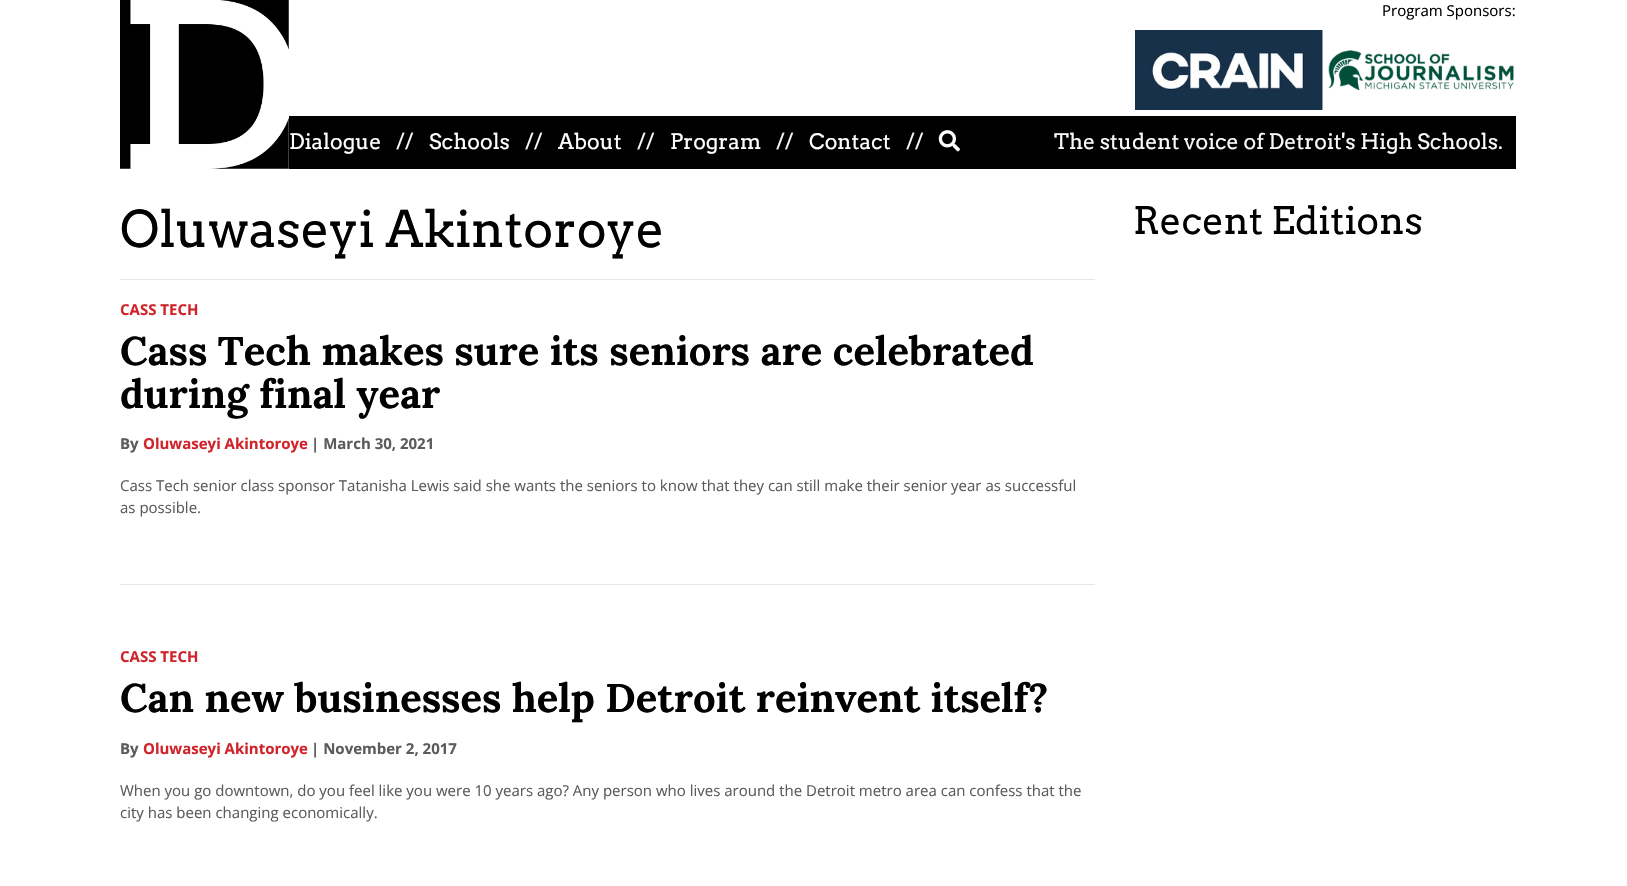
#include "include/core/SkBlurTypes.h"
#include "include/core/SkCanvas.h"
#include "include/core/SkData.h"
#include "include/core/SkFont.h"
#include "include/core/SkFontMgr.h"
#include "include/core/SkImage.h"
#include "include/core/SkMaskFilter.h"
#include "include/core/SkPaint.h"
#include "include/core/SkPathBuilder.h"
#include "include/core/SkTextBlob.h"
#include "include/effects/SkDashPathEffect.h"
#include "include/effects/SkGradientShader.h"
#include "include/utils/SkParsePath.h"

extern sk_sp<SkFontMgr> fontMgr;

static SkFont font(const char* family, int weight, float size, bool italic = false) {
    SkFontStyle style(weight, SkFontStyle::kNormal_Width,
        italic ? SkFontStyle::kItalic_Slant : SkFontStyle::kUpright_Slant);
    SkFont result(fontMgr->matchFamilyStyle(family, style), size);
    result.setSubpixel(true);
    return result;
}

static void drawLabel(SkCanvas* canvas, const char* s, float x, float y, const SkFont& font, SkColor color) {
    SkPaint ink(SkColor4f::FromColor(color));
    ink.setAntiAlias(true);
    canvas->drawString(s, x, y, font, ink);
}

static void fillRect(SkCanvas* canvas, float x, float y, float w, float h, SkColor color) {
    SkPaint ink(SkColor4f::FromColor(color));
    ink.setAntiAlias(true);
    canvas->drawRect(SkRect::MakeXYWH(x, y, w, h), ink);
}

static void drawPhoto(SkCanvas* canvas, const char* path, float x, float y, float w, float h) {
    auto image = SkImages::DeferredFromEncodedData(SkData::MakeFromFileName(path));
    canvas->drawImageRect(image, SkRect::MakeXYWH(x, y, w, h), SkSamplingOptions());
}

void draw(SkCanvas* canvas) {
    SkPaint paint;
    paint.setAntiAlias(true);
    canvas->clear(0xFFFFFFFF);
    drawPhoto(canvas, "assets/img1.png", 120, 0, 169, 169);
    SkFont font1 = font("Open Sans", 400, 15);
    drawLabel(canvas, "Program Sponsors:", 1382, 16, font1, 0xFF020100);
    drawPhoto(canvas, "assets/img2.png", 1135, 30, 188, 80);
    drawPhoto(canvas, "assets/img3.png", 1328, 50, 186, 40);
    fillRect(canvas, 289, 116, 1227, 53, 0xFF000000);
    SkFont font2 = font("Arvo", 400, 21.25f);
    drawLabel(canvas, "Dialogue", 289, 149, font2, 0xFFFFFFFF);
    drawLabel(canvas, "//", 396, 149, font2, 0xFFF8F9FA);
    drawLabel(canvas, "Schools", 429, 149, font2, 0xFFFFFFFF);
    drawLabel(canvas, "//", 525, 149, font2, 0xFFF8F9FA);
    drawLabel(canvas, "About", 558, 149, font2, 0xFFFFFFFF);
    drawLabel(canvas, "//", 637, 149, font2, 0xFFF8F9FA);
    drawLabel(canvas, "Program", 670, 149, font2, 0xFFFFFFFF);
    drawLabel(canvas, "//", 776, 149, font2, 0xFFF8F9FA);
    drawLabel(canvas, "Contact", 809, 149, font2, 0xFFFFFFFF);
    drawLabel(canvas, "//", 906, 149, font2, 0xFFF8F9FA);
    drawPhoto(canvas, "assets/img4.png", 938, 130, 22, 22);
    drawLabel(canvas, "The student voice of Detroit's High Schools.", 1054, 149, font2, 0xFFF8F9FA);
    SkFont font3 = font("Arvo", 400, 50.25f);
    drawLabel(canvas, "Oluwaseyi Akintoroye", 120, 247, font3, 0xFF020100);
    fillRect(canvas, 120, 279, 975, 1, 0xFFE6E6E6);
    SkFont font4 = font("Open Sans", 700, 15);
    drawLabel(canvas, "CASS TECH", 120, 315, font4, 0xFFD1232A);
    SkFont font5 = font("Lora", 700, 40);
    drawLabel(canvas, "Cass Tech makes sure its seniors are celebrated", 120, 365, font5, 0xFF020100);
    drawLabel(canvas, "during final year", 120, 408, font5, 0xFF020100);
    drawLabel(canvas, "By", 120, 449, font4, 0xFF5C5B5B);
    drawLabel(canvas, "Oluwaseyi Akintoroye", 143, 449, font4, 0xFFD1232A);
    drawLabel(canvas, "| March 30, 2021", 311, 449, font4, 0xFF5C5B5B);
    drawLabel(canvas, "Cass Tech senior class sponsor Tatanisha Lewis said she wants the seniors to know that they can still make their senior year as successful", 120, 491, font1, 0xFF5C5B5B);
    drawLabel(canvas, "as possible.", 120, 513, font1, 0xFF5C5B5B);
    fillRect(canvas, 120, 584, 975, 1, 0xFFE6E6E6);
    drawLabel(canvas, "CASS TECH", 120, 662, font4, 0xFFD1232A);
    drawLabel(canvas, "Can new businesses help Detroit reinvent itself?", 120, 712, font5, 0xFF020100);
    drawLabel(canvas, "By", 120, 754, font4, 0xFF5C5B5B);
    drawLabel(canvas, "Oluwaseyi Akintoroye", 143, 754, font4, 0xFFD1232A);
    drawLabel(canvas, "| November 2, 2017", 311, 754, font4, 0xFF5C5B5B);
    drawLabel(canvas, "When you go downtown, do you feel like you were 10 years ago? Any person who lives around the Detroit metro area can confess that the", 120, 796, font1, 0xFF5C5B5B);
    drawLabel(canvas, "city has been changing economically.", 120, 818, font1, 0xFF5C5B5B);
    SkFont font6 = font("Arvo", 400, 37.75f);
    drawLabel(canvas, "Recent Editions", 1133, 234, font6, 0xFF020100);
}
